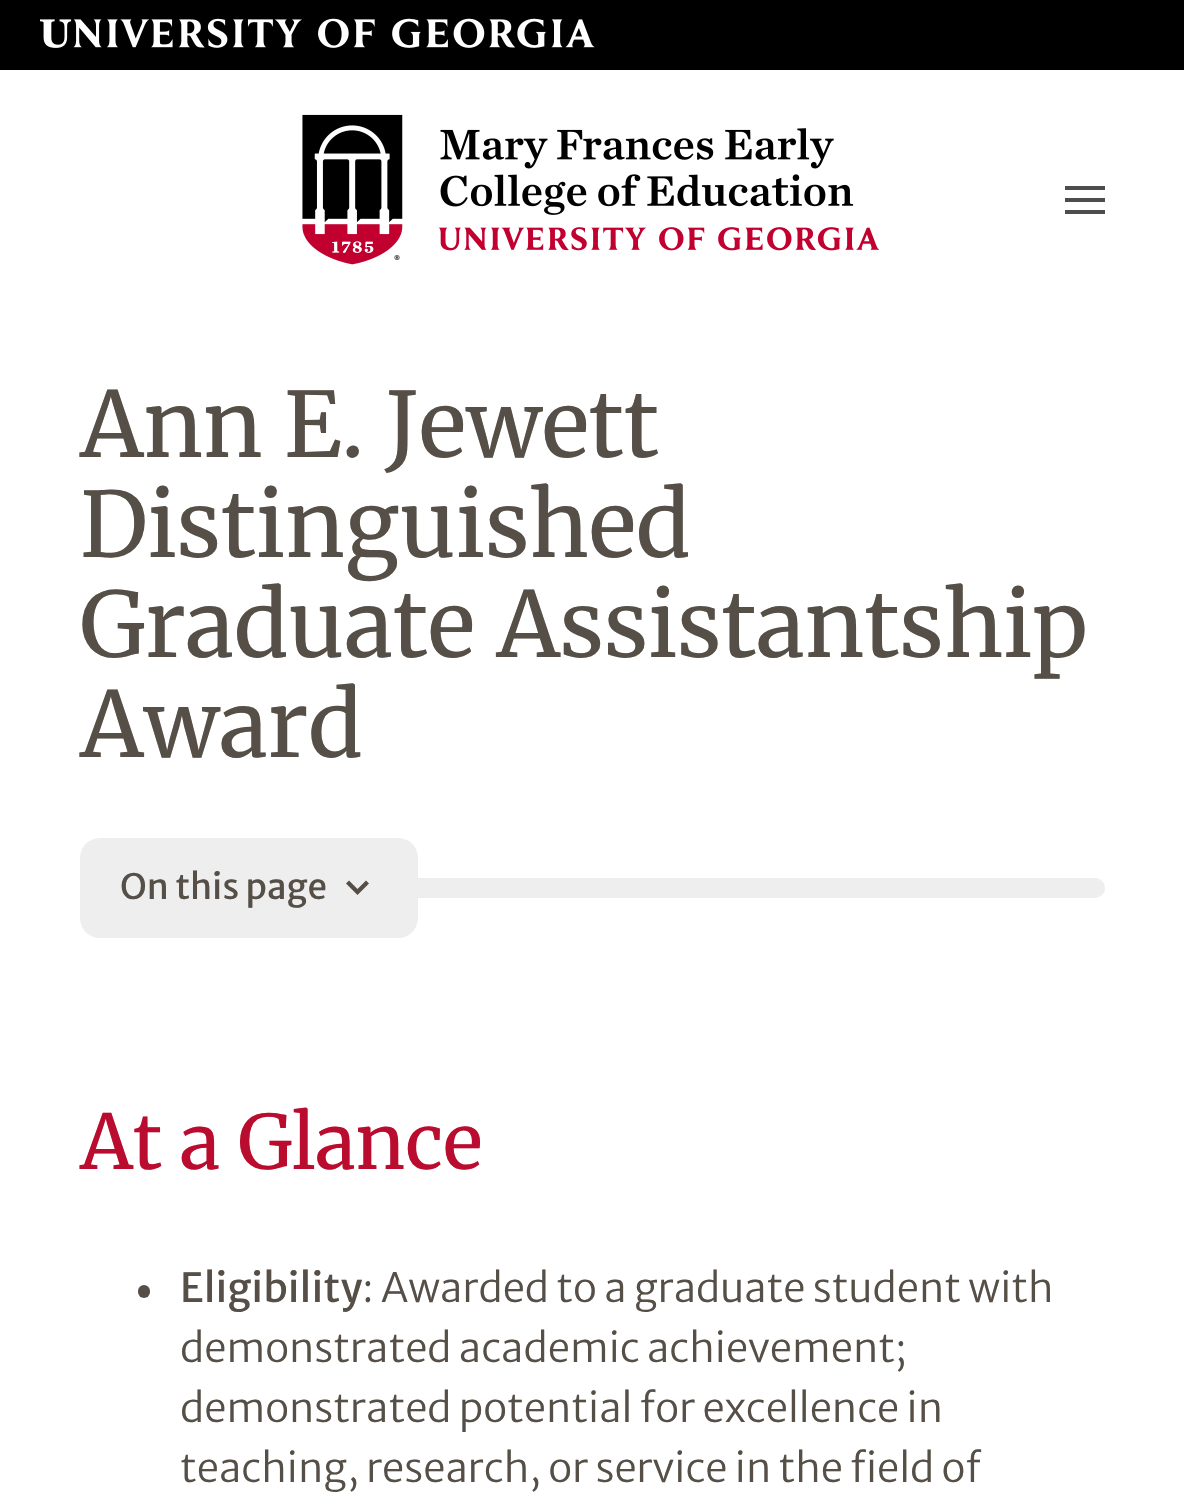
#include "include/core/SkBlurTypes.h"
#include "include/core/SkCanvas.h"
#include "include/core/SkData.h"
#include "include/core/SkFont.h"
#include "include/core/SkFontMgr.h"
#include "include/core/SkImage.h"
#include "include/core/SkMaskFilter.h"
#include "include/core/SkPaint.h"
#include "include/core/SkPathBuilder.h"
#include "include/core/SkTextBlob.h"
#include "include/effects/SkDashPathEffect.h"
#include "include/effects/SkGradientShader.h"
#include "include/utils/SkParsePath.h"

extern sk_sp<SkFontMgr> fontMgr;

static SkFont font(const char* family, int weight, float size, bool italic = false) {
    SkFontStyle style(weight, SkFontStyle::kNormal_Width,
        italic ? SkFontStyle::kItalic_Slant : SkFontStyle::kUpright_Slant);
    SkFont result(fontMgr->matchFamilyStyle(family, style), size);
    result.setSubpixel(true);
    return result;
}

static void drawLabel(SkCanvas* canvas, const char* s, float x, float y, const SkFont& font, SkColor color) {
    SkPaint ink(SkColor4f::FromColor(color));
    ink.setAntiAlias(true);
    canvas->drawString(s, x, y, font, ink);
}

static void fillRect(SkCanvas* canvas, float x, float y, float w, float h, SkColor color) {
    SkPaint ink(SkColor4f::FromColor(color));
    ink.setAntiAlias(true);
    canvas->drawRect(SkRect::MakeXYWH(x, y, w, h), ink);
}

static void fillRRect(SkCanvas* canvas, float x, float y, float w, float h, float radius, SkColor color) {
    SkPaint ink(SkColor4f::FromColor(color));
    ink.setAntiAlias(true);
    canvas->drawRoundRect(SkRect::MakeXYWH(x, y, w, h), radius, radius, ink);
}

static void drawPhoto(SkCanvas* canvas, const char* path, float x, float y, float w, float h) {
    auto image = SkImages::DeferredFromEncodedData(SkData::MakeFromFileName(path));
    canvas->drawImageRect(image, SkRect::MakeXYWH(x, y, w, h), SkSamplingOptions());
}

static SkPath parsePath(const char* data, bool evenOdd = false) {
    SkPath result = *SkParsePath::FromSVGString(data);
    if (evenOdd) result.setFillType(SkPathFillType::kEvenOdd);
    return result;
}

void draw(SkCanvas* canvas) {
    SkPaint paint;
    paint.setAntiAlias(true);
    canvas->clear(0xFFFFFFFF);
    fillRect(canvas, 0, 0, 1184, 70, 0xFF000000);
    drawPhoto(canvas, "assets/img1.png", 40, 18, 555, 30);
    drawPhoto(canvas, "assets/img2.png", 302, 114, 578, 151);
    paint.setColor(0xFF4D4D4D);
    canvas->drawPath(parsePath("M1065 186H1105V190H1065ZM1065 198H1105V202H1065ZM1065 210H1105V214H1065V180Z"), paint);
    SkFont font1 = font("Merriweather", 400, 90);
    drawLabel(canvas, "Ann E. Jewett", 80, 457, font1, 0xFF554F47);
    drawLabel(canvas, "Distinguished", 80, 557, font1, 0xFF554F47);
    drawLabel(canvas, "Graduate Assistantship", 80, 657, font1, 0xFF554F47);
    drawLabel(canvas, "Award", 80, 757, font1, 0xFF554F47);
    fillRRect(canvas, 80, 878, 1025, 20, 10, 0xFFEEEEEE);
    fillRRect(canvas, 80, 838, 338, 100, 20, 0xFFEEEEEE);
    SkFont font2 = font("Merriweather Sans", 400, 35);
    drawLabel(canvas, "On this page", 120, 899, font2, 0xFF554F47);
    paint.setColor(0xFF554F47);
    canvas->drawPath(parsePath("M356 893.5L357.5 895L369 883.5L366 880.5L357.5 889L349 880.5L346 883.5Z"), paint);
    SkFont font3 = font("Merriweather", 400, 75);
    drawLabel(canvas, "At a Glance", 80, 1169, font3, 0xFFBA0C2F);
    fillRRect(canvas, 138, 1285, 12, 13, 6, 0xFF554F47);
    SkFont font4 = font("Merriweather Sans", 400, 40);
    drawLabel(canvas, "Eligibility", 180, 1302, font4, 0xFF554F47);
    SkFont font5 = font("Merriweather Sans", 300, 40);
    drawLabel(canvas, ": Awarded to a graduate student with", 362, 1302, font5, 0xFF554F47);
    drawLabel(canvas, "demonstrated academic achievement;", 180, 1362, font5, 0xFF554F47);
    drawLabel(canvas, "demonstrated potential for excellence in", 180, 1422, font5, 0xFF554F47);
    drawLabel(canvas, "teaching, research, or service in the field of", 180, 1482, font5, 0xFF554F47);
}
